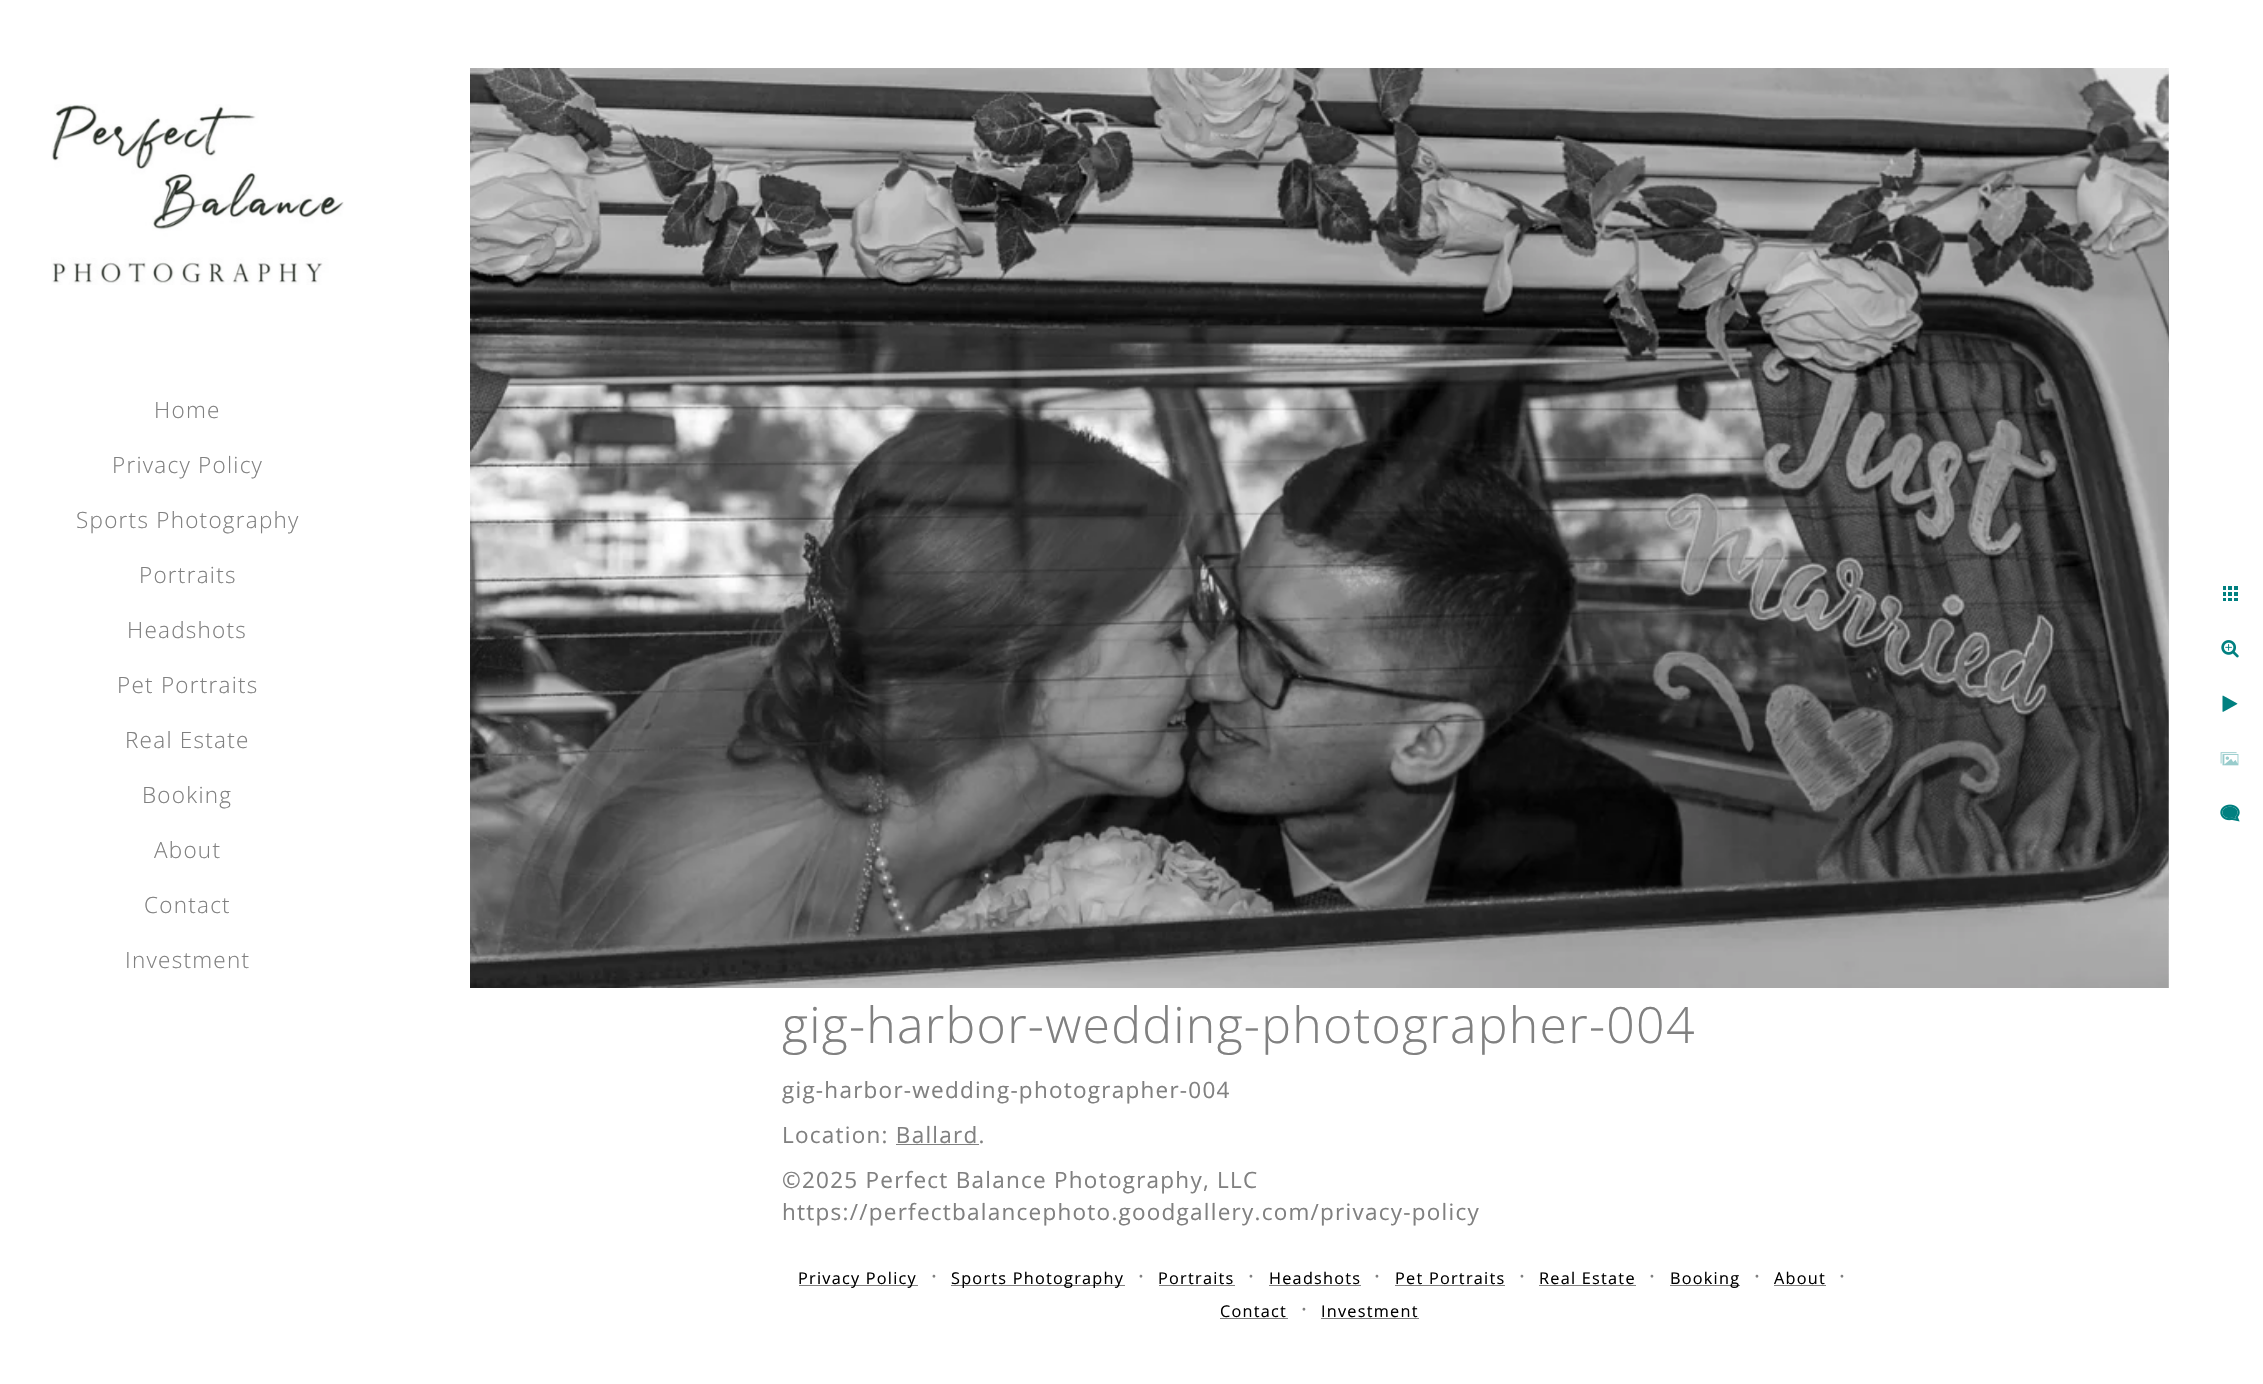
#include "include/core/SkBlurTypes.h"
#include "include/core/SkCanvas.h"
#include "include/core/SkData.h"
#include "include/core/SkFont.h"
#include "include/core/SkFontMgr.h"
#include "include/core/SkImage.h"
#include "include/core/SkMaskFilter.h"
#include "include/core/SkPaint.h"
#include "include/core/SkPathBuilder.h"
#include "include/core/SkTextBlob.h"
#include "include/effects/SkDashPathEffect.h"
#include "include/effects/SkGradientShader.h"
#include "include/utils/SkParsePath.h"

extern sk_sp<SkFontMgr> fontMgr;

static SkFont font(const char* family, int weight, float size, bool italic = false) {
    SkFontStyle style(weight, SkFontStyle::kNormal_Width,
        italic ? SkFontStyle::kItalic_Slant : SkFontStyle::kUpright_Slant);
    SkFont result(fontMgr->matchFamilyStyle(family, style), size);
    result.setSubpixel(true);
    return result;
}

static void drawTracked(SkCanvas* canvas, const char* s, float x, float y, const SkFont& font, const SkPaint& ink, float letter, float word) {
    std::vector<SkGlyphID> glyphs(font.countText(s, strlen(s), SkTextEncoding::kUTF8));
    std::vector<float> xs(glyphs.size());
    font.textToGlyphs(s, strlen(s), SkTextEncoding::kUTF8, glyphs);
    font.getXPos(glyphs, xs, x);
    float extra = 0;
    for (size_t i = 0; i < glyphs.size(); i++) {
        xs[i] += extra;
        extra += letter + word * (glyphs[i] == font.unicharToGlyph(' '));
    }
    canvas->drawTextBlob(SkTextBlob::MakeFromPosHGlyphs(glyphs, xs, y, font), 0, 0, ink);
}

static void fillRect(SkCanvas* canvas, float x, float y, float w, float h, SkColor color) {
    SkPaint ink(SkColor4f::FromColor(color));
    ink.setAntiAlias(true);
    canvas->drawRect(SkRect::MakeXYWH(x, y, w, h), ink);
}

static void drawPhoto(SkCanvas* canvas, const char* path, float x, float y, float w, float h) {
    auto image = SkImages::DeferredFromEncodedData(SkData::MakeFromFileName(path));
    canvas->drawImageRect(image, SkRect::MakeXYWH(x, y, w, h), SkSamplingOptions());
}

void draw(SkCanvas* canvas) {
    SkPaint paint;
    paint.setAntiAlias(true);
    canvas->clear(0xFFFFFFFF);
    drawPhoto(canvas, "assets/img1.png", 51, 104, 293, 181);
    SkFont font1 = font("Open Sans", 300, 22.5f);
    paint.setColor(0xFF808080);
    drawTracked(canvas, "Home", 154, 418, font1, paint, 1.25f, 0);
    drawTracked(canvas, "Privacy Policy", 112, 473, font1, paint, 1.25f, 0);
    drawTracked(canvas, "Sports Photography", 76, 528, font1, paint, 1.25f, 0);
    drawTracked(canvas, "Portraits", 139, 583, font1, paint, 1.25f, 0);
    drawTracked(canvas, "Headshots", 127, 638, font1, paint, 1.25f, 0);
    drawTracked(canvas, "Pet Portraits", 117, 693, font1, paint, 1.25f, 0);
    drawTracked(canvas, "Real Estate", 125, 748, font1, paint, 1.25f, 0);
    drawTracked(canvas, "Booking", 142, 803, font1, paint, 1.25f, 0);
    drawTracked(canvas, "About", 154, 858, font1, paint, 1.25f, 0);
    drawTracked(canvas, "Contact", 144, 913, font1, paint, 1.25f, 0);
    drawTracked(canvas, "Investment", 125, 968, font1, paint, 1.25f, 0);
    drawPhoto(canvas, "assets/img3.png", 2168, 250, 1, 738);
    drawPhoto(canvas, "assets/img2.png", 470, 68, 1699, 920);
    drawPhoto(canvas, "assets/img4.png", 2223, 586, 15, 15);
    drawPhoto(canvas, "assets/img5.png", 2221, 640, 18, 18);
    drawPhoto(canvas, "assets/img6.png", 2222, 695, 16, 17);
    drawPhoto(canvas, "assets/img7.png", 2220, 752, 19, 14);
    drawPhoto(canvas, "assets/img8.png", 2220, 804, 20, 18);
    SkFont font2 = font("Open Sans", 300, 50);
    drawTracked(canvas, "gig-harbor-wedding-photographer-004", 782, 1043, font2, paint, 1.25f, 0);
    SkFont font3 = font("Open Sans", 400, 22.5f);
    drawTracked(canvas, "gig-harbor-wedding-photographer-004", 782, 1098, font3, paint, 1.25f, 0);
    drawTracked(canvas, "Location: Ballard.", 782, 1143, font3, paint, 1.25f, 0);
    fillRect(canvas, 896, 1144, 83, 1, 0xFF808080);
    drawTracked(canvas, "©2025 Perfect Balance Photography, LLC", 782, 1188, font3, paint, 1.25f, 0);
    drawTracked(canvas, "https://perfectbalancephoto.goodgallery.com/privacy-policy", 782, 1220, font3, paint, 1.25f, 0);
    fillRect(canvas, 799, 1285, 119, 1, 0xFF808080);
    SkFont font4 = font("Open Sans", 400, 16.25f);
    paint.setColor(0xFF000000);
    drawTracked(canvas, "Privacy Policy", 798, 1284, font4, paint, 1.25f, 0);
    paint.setColor(0xFF808080);
    drawTracked(canvas, "·", 931, 1284, font3, paint, 1.25f, 0);
    fillRect(canvas, 951, 1285, 174, 1, 0xFF808080);
    paint.setColor(0xFF000000);
    drawTracked(canvas, "Sports Photography", 951, 1284, font4, paint, 1.25f, 0);
    paint.setColor(0xFF808080);
    drawTracked(canvas, "·", 1138, 1284, font3, paint, 1.25f, 0);
    paint.setColor(0xFF000000);
    drawTracked(canvas, "Portraits", 1158, 1284, font4, paint, 1.25f, 0);
    fillRect(canvas, 1159, 1285, 76, 1, 0xFF808080);
    paint.setColor(0xFF808080);
    drawTracked(canvas, "·", 1248, 1284, font3, paint, 1.25f, 0);
    paint.setColor(0xFF000000);
    drawTracked(canvas, "Headshots", 1269, 1284, font4, paint, 1.25f, 0);
    fillRect(canvas, 1269, 1285, 92, 1, 0xFF808080);
    paint.setColor(0xFF808080);
    drawTracked(canvas, "·", 1374, 1284, font3, paint, 1.25f, 0);
    paint.setColor(0xFF000000);
    drawTracked(canvas, "Pet Portraits", 1395, 1284, font4, paint, 1.25f, 0);
    fillRect(canvas, 1395, 1285, 110, 1, 0xFF808080);
    paint.setColor(0xFF808080);
    drawTracked(canvas, "·", 1519, 1284, font3, paint, 1.25f, 0);
    paint.setColor(0xFF000000);
    drawTracked(canvas, "Real Estate", 1539, 1284, font4, paint, 1.25f, 0);
    fillRect(canvas, 1539, 1285, 97, 1, 0xFF808080);
    paint.setColor(0xFF808080);
    drawTracked(canvas, "·", 1649, 1284, font3, paint, 1.25f, 0);
    fillRect(canvas, 1670, 1285, 70, 1, 0xFF808080);
    paint.setColor(0xFF000000);
    drawTracked(canvas, "Booking", 1670, 1284, font4, paint, 1.25f, 0);
    paint.setColor(0xFF808080);
    drawTracked(canvas, "·", 1754, 1284, font3, paint, 1.25f, 0);
    paint.setColor(0xFF000000);
    drawTracked(canvas, "About", 1774, 1284, font4, paint, 1.25f, 0);
    fillRect(canvas, 1774, 1285, 52, 1, 0xFF808080);
    paint.setColor(0xFF808080);
    drawTracked(canvas, "·", 1839, 1284, font3, paint, 1.25f, 0);
    paint.setColor(0xFF000000);
    drawTracked(canvas, "Contact", 1220, 1317, font4, paint, 1.25f, 0);
    fillRect(canvas, 1220, 1318, 68, 1, 0xFF808080);
    paint.setColor(0xFF808080);
    drawTracked(canvas, "·", 1301, 1317, font3, paint, 1.25f, 0);
    paint.setColor(0xFF000000);
    drawTracked(canvas, "Investment", 1321, 1317, font4, paint, 1.25f, 0);
    fillRect(canvas, 1321, 1318, 98, 1, 0xFF808080);
}
